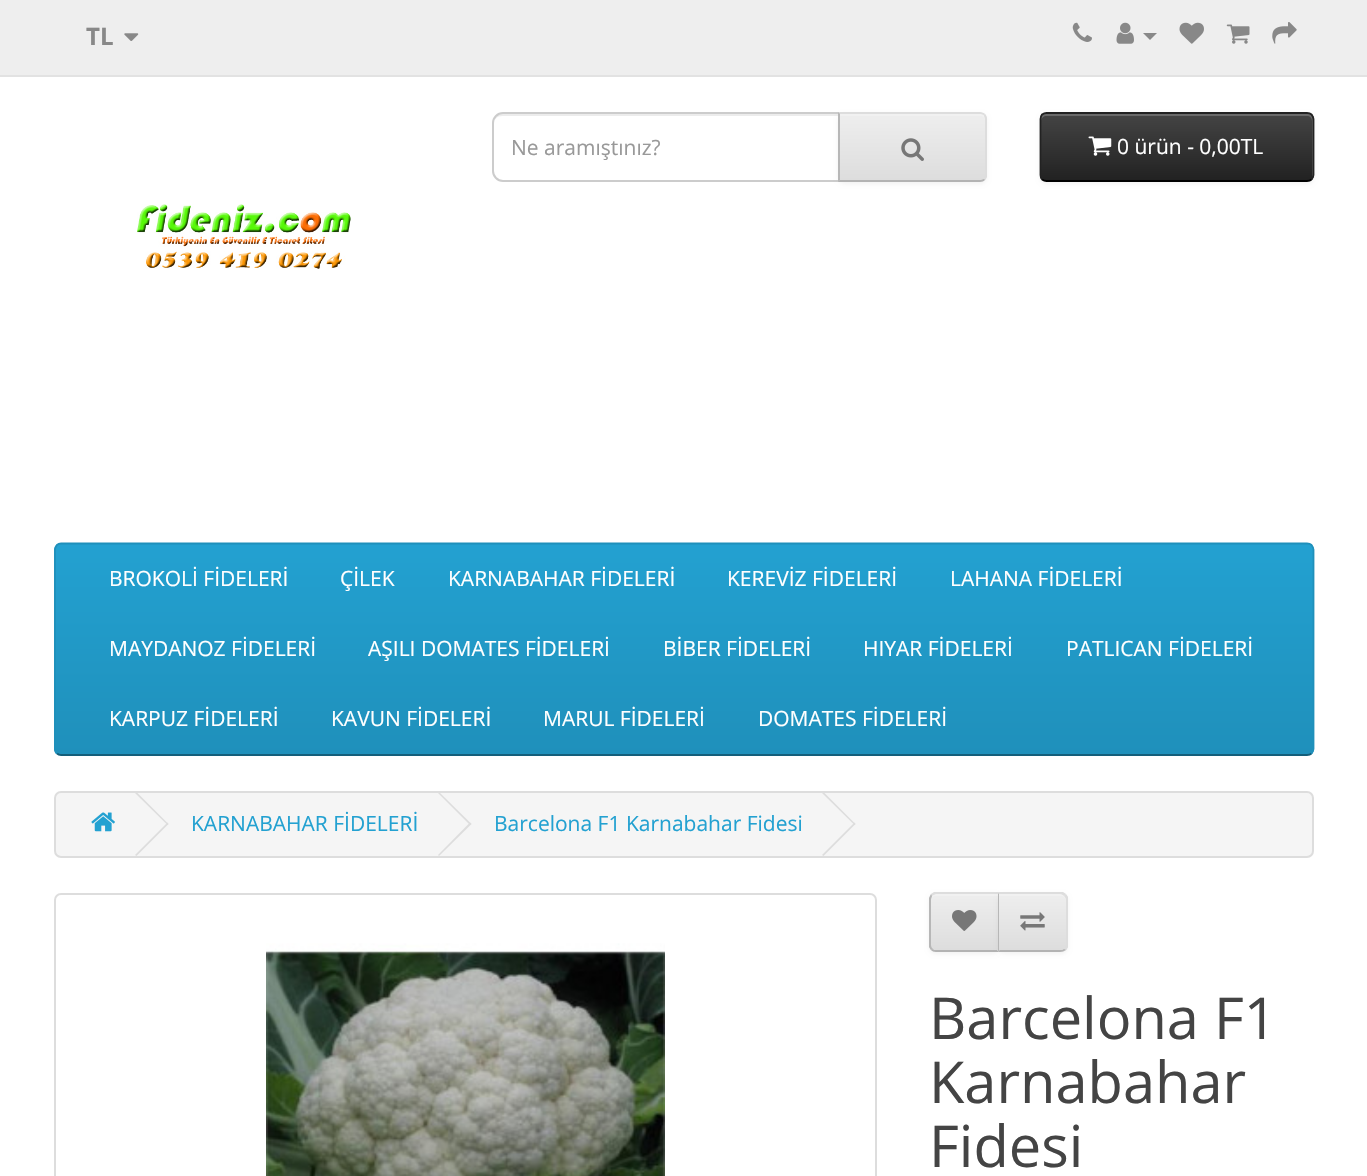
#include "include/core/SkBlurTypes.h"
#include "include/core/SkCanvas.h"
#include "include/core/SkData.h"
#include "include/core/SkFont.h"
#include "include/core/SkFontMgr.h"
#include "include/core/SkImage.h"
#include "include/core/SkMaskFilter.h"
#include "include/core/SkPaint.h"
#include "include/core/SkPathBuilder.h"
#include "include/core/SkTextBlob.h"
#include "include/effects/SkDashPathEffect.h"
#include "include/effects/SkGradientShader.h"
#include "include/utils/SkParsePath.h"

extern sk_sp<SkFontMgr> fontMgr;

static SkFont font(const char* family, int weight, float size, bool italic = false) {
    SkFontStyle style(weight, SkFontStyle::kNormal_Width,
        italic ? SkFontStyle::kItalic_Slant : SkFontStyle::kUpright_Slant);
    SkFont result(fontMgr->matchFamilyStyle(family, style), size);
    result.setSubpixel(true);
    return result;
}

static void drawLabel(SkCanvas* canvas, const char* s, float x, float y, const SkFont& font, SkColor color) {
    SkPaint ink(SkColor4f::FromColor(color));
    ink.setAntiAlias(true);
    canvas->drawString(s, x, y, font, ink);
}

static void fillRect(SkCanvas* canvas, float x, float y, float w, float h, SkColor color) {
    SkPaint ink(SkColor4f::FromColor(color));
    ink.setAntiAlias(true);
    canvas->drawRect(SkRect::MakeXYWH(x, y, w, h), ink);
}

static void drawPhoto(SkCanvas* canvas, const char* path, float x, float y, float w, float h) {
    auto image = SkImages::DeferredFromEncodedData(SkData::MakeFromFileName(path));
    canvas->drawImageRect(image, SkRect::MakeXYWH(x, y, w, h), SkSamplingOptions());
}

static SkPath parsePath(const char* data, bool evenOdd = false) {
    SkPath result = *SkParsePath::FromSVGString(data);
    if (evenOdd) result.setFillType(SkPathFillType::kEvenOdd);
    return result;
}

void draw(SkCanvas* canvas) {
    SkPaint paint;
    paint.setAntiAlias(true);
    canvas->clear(0xFFFFFFFF);
    fillRect(canvas, 0, 0, 1367, 75, 0xFFEEEEEE);
    fillRect(canvas, 0, 75, 1367, 2, 0xFFE2E2E2);
    SkFont font1 = font("Open Sans", 700, 24);
    drawLabel(canvas, "TL", 86, 45, font1, 0xFF888888);
    drawPhoto(canvas, "assets/img1.png", 124, 33, 15, 8);
    drawPhoto(canvas, "assets/img2.png", 1072, 22, 20, 20);
    drawPhoto(canvas, "assets/img3.png", 1116, 22, 18, 22);
    paint.setColor(0xFF888888);
    canvas->drawPath(parsePath("M1143 33H1157L1150 40Z"), paint);
    drawPhoto(canvas, "assets/img4.png", 1179, 22, 25, 22);
    drawPhoto(canvas, "assets/img5.png", 1226, 24, 24, 20);
    drawPhoto(canvas, "assets/img6.png", 1272, 22, 25, 22);
    paint.setColor(0xFFECECEC);
    canvas->drawPath(parsePath("M502 116H838V114H503C497 114 494 119 494 124C494 119 497 116 502 116Z"), paint);
    paint.setStroke(true);
    paint.setStrokeWidth(2);
    paint.setColor(0xFFCCCCCC);
    canvas->drawPath(parsePath("M503 113H839V181H503C497.5 181 493 176.5 493 171V123C493 117.5 497.5 113 503 113Z"), paint);
    SkFont font2 = font("Open Sans", 400, 21);
    drawLabel(canvas, "Ne aramıştınız?", 511, 155, font2, 0xFF999999);
    paint.setStroke(false);
    paint.setColor(0x0D000000);
    paint.setMaskFilter(SkMaskFilter::MakeBlur(kNormal_SkBlurStyle, 2));
    canvas->drawRoundRect(SkRect::MakeXYWH(838, 114, 149, 70), 7, 7, paint);
    paint.setMaskFilter(nullptr);
    canvas->save();
    canvas->clipPath(parsePath("M838 112H980C984 112 987 115 987 119V175C987 179 984 182 980 182H838Z"), true);
    {
        const SkColor colors[] = {0xFFEEEEEE, 0xFFDDDDDD};
        const float stops[] = {0, 1};
        const SkPoint ends[] = {{913, 114}, {913, 180}};
        paint.setShader(SkGradientShader::MakeLinear(ends, colors, stops, 2, SkTileMode::kClamp));
        paint.setAlpha(255);
    }
    canvas->drawRect(SkRect::MakeXYWH(840, 114, 147, 66), paint);
    canvas->restore();
    paint.setShader(nullptr);
    paint.setColor(0xFFF1F1F1);
    canvas->drawPath(parsePath("M840 116H980C983 116 985 118 985 121V119C985 116 983 114 980 114H840Z"), paint);
    paint.setColor(0xFFDDDDDD);
    canvas->drawPath(parsePath("M838 112L840 114H981L984 115L985 114C984 113 982 112 980 112Z"), paint);
    canvas->drawPath(parsePath("M987 175V119C987 117 986 115 985 114L984 115C984 116 985 118 985 119V175C985 176 984 178 984 179L985 180C986 179 987 177 987 175Z"), paint);
    paint.setColor(0xFFB3B3B3);
    canvas->drawPath(parsePath("M838 182H980C982 182 984 181 985 180L984 179L981 180H840Z"), paint);
    paint.setColor(0xFFB7B7B7);
    canvas->drawPath(parsePath("M840 114L838 112V182L840 180Z"), paint);
    drawPhoto(canvas, "assets/img7.png", 901, 138, 23, 23);
    paint.setColor(0x0D000000);
    paint.setMaskFilter(SkMaskFilter::MakeBlur(kNormal_SkBlurStyle, 2));
    canvas->drawRoundRect(SkRect::MakeXYWH(1040, 114, 274, 70), 7, 7, paint);
    paint.setMaskFilter(nullptr);
    canvas->save();
    canvas->clipPath(parsePath("M1047 112H1307C1311 112 1314 115 1314 119V175C1314 179 1311 182 1307 182H1047C1043 182 1040 179 1040 175V119C1040 115 1043 112 1047 112Z"), true);
    {
        const SkColor colors[] = {0xFF444444, 0xFF222222};
        const float stops[] = {0, 1};
        const SkPoint ends[] = {{1177, 114}, {1177, 180}};
        paint.setShader(SkGradientShader::MakeLinear(ends, colors, stops, 2, SkTileMode::kClamp));
        paint.setAlpha(255);
    }
    canvas->drawRect(SkRect::MakeXYWH(1040, 114, 274, 66), paint);
    canvas->restore();
    paint.setShader(nullptr);
    paint.setColor(0x33FFFFFF);
    canvas->drawPath(parsePath("M1046 116H1307C1310 116 1312 118 1312 121V178C1313 177 1313 176 1313 175V119C1313 116 1311 114 1308 114H1046C1043 114 1041 116 1041 119V121C1041 118 1044 116 1046 116Z"), paint);
    paint.setStroke(true);
    paint.setStrokeWidth(1.8f);
    paint.setColor(0xFF000000);
    canvas->drawPath(parsePath("M1311.5 179.5C1310.5 180.5 1309 181 1307 181H1046.5C1045 181 1043.5 180.5 1042 179.5"), paint);
    paint.setColor(0xFF222222);
    canvas->drawPath(parsePath("M1042 179.5C1041 178 1040.5 176.5 1040.5 175V119C1040.5 117.5 1041 116 1042 114.5C1043.5 113.5 1045 113 1046.5 113H1307C1309 113 1310.5 113.5 1311.5 114.5C1312.5 116 1313.5 117.5 1313.5 119V175C1313.5 176.5 1312.5 178 1311.5 179.5"), paint);
    drawPhoto(canvas, "assets/img8.png", 1088, 136, 24, 20);
    drawLabel(canvas, "0 ürün - 0,00TL", 1117, 154, font2, 0xFFFFFFFF);
    drawPhoto(canvas, "assets/img9.png", 137, 204, 214, 65);
    canvas->save();
    canvas->clipPath(parsePath("M61 543H1307C1311 543 1314 546 1314 550V749C1314 753 1311 756 1307 756H61C57 756 54 753 54 749V550C54 546 57 543 61 543Z"), true);
    paint.setStroke(false);
    {
        const SkColor colors[] = {0xFF23A1D1, 0xFF1F90BB};
        const float stops[] = {0, 1};
        const SkPoint ends[] = {{684, 544}, {684, 754}};
        paint.setShader(SkGradientShader::MakeLinear(ends, colors, stops, 2, SkTileMode::kClamp));
        paint.setAlpha(255);
    }
    canvas->drawRect(SkRect::MakeXYWH(54, 544, 1260, 210), paint);
    canvas->restore();
    paint.setStroke(true);
    paint.setShader(nullptr);
    paint.setColor(0xFF145E7A);
    canvas->drawPath(parsePath("M1311.5 753.5C1310.5 754.5 1309 755 1307 755H61C59.5 755 58 754.5 57 753.5"), paint);
    paint.setColor(0xFF1F90BB);
    canvas->drawPath(parsePath("M57 753.5C56 752 55 750.5 55 749V549.5C55 548 56 546.5 57 545C58 544 59.5 543.5 61 543.5H1307C1309 543.5 1310.5 544 1311.5 545C1312.5 546.5 1313.5 548 1313.5 549.5V749C1313.5 750.5 1312.5 752 1311.5 753.5"), paint);
    drawLabel(canvas, "BROKOLİ FİDELERİ", 109, 586, font2, 0xFFFFFFFF);
    drawLabel(canvas, "ÇİLEK", 340, 586, font2, 0xFFFFFFFF);
    drawLabel(canvas, "KARNABAHAR FİDELERİ", 448, 586, font2, 0xFFFFFFFF);
    drawLabel(canvas, "KEREVİZ FİDELERİ", 727, 586, font2, 0xFFFFFFFF);
    drawLabel(canvas, "LAHANA FİDELERİ", 950, 586, font2, 0xFFFFFFFF);
    drawLabel(canvas, "MAYDANOZ FİDELERİ", 109, 656, font2, 0xFFFFFFFF);
    drawLabel(canvas, "AŞILI DOMATES FİDELERİ", 368, 656, font2, 0xFFFFFFFF);
    drawLabel(canvas, "BİBER FİDELERİ", 663, 656, font2, 0xFFFFFFFF);
    drawLabel(canvas, "HIYAR FİDELERİ", 863, 656, font2, 0xFFFFFFFF);
    drawLabel(canvas, "PATLICAN FİDELERİ", 1066, 656, font2, 0xFFFFFFFF);
    drawLabel(canvas, "KARPUZ FİDELERİ", 109, 726, font2, 0xFFFFFFFF);
    drawLabel(canvas, "KAVUN FİDELERİ", 331, 726, font2, 0xFFFFFFFF);
    drawLabel(canvas, "MARUL FİDELERİ", 543, 726, font2, 0xFFFFFFFF);
    drawLabel(canvas, "DOMATES FİDELERİ", 758, 726, font2, 0xFFFFFFFF);
    paint.setStroke(false);
    paint.setColor(0xFFF5F5F5);
    canvas->drawRoundRect(SkRect::MakeXYWH(55, 792, 1258, 65), 6, 6, paint);
    paint.setStroke(true);
    paint.setStrokeWidth(2);
    paint.setColor(0xFFDDDDDD);
    canvas->drawRoundRect(SkRect::MakeXYWH(55, 792, 1258, 65), 6, 6, paint);
    drawPhoto(canvas, "assets/img10.png", 91, 812, 24, 20);
    paint.setStroke(false);
    canvas->drawPath(parsePath("M135 793L136.5 792L168.5 824L167.5 825Z"), paint);
    canvas->drawPath(parsePath("M135 855L167.5 822.5L168.5 824L136.5 856Z"), paint);
    drawLabel(canvas, "KARNABAHAR FİDELERİ", 191, 831, font2, 0xFF23A1D1);
    canvas->drawPath(parsePath("M438 793L439 792L471.5 824L470 825Z"), paint);
    canvas->drawPath(parsePath("M438 855L470 822.5L471.5 824L439 856Z"), paint);
    drawLabel(canvas, "Barcelona F1 Karnabahar Fidesi", 494, 831, font2, 0xFF23A1D1);
    canvas->drawPath(parsePath("M822 793L823.5 792L855.5 824L854.5 825Z"), paint);
    canvas->drawPath(parsePath("M822 855L854.5 822.5L855.5 824L823.5 856Z"), paint);
    paint.setStroke(true);
    canvas->drawRoundRect(SkRect::MakeXYWH(55, 894, 821, 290), 6, 6, paint);
    drawPhoto(canvas, "assets/img11.png", 266, 943, 399, 233);
    paint.setStroke(false);
    paint.setColor(0x0D000000);
    paint.setMaskFilter(SkMaskFilter::MakeBlur(kNormal_SkBlurStyle, 2));
    canvas->drawRoundRect(SkRect::MakeXYWH(929, 894, 70, 60), 7, 7, paint);
    paint.setMaskFilter(nullptr);
    paint.setColor(0xFFE7E7E7);
    canvas->drawPath(parsePath("M936 893H999V952H936C932 952 929 949 929 945V900C929 896 932 893 936 893Z"), paint);
    canvas->save();
    canvas->clipPath(parsePath("M936 893H999V952H936C932 952 929 949 929 945V900C929 896 932 893 936 893Z"), true);
    {
        const SkColor colors[] = {0xFFEEEEEE, 0xFFDDDDDD};
        const float stops[] = {0, 1};
        const SkPoint ends[] = {{964, 894}, {964, 950}};
        paint.setShader(SkGradientShader::MakeLinear(ends, colors, stops, 2, SkTileMode::kClamp));
        paint.setAlpha(255);
    }
    canvas->drawRect(SkRect::MakeXYWH(929, 894, 69, 56), paint);
    canvas->restore();
    paint.setShader(nullptr);
    paint.setColor(0xFFF1F1F1);
    canvas->drawPath(parsePath("M936 896H998V894H936C933 894 931 896 931 899V901C931 898 933 896 936 896Z"), paint);
    paint.setColor(0xFFDDDDDD);
    canvas->drawPath(parsePath("M936 894C935 894 933 895 932 896L931 894L934 892H999L998 894Z"), paint);
    paint.setColor(0xFFB3B3B3);
    canvas->drawPath(parsePath("M936 952H999L997 950H936C935 950 933 950 933 949L931 950C932 951 934 952 936 952Z"), paint);
    paint.setColor(0xFFB7B7B7);
    canvas->drawPath(parsePath("M929 898L931 894L932 896C932 897 931 898 931 900V945C931 947 932 948 933 949L931 950L929 947Z"), paint);
    drawPhoto(canvas, "assets/img12.png", 952, 910, 25, 21);
    paint.setColor(0x0D000000);
    paint.setMaskFilter(SkMaskFilter::MakeBlur(kNormal_SkBlurStyle, 2));
    canvas->drawRoundRect(SkRect::MakeXYWH(998, 894, 70, 60), 7, 7, paint);
    paint.setMaskFilter(nullptr);
    paint.setColor(0xFFE7E7E7);
    canvas->drawPath(parsePath("M998 893H1061C1065 893 1068 896 1068 900V945C1068 949 1065 952 1061 952H998Z"), paint);
    canvas->save();
    canvas->clipPath(parsePath("M998 893H1061C1065 893 1068 896 1068 900V945C1068 949 1065 952 1061 952H998Z"), true);
    {
        const SkColor colors[] = {0xFFEEEEEE, 0xFFDDDDDD};
        const float stops[] = {0, 1};
        const SkPoint ends[] = {{1033, 894}, {1033, 950}};
        paint.setShader(SkGradientShader::MakeLinear(ends, colors, stops, 2, SkTileMode::kClamp));
        paint.setAlpha(255);
    }
    canvas->drawRect(SkRect::MakeXYWH(999, 894, 69, 56), paint);
    canvas->restore();
    paint.setShader(nullptr);
    paint.setColor(0xFFF1F1F1);
    canvas->drawPath(parsePath("M999 896H1060C1063 896 1066 898 1066 901V899C1066 896 1064 894 1061 894H999Z"), paint);
    paint.setColor(0xFFDDDDDD);
    canvas->drawPath(parsePath("M999 894L998 892H1063L1066 894L1064 896C1063 895 1062 894 1060 894Z"), paint);
    canvas->drawPath(parsePath("M1068 947L1066 950L1064 949C1065 948 1066 946 1066 945V900C1066 898 1065 897 1064 896L1066 894L1068 897Z"), paint);
    paint.setColor(0xFFB3B3B3);
    canvas->drawPath(parsePath("M998 952H1060C1062 952 1064 951 1066 950L1064 949C1063 950 1062 950 1060 950H1000Z"), paint);
    paint.setColor(0xFFB7B7B7);
    canvas->drawPath(parsePath("M999 894V950H1000L998 952V893Z"), paint);
    drawPhoto(canvas, "assets/img13.png", 1020, 912, 25, 19);
    SkFont font3 = font("Open Sans", 400, 57.75f);
    drawLabel(canvas, "Barcelona F1", 929, 1039, font3, 0xFF444444);
    drawLabel(canvas, "Karnabahar", 929, 1103, font3, 0xFF444444);
    drawLabel(canvas, "Fidesi", 929, 1167, font3, 0xFF444444);
}
